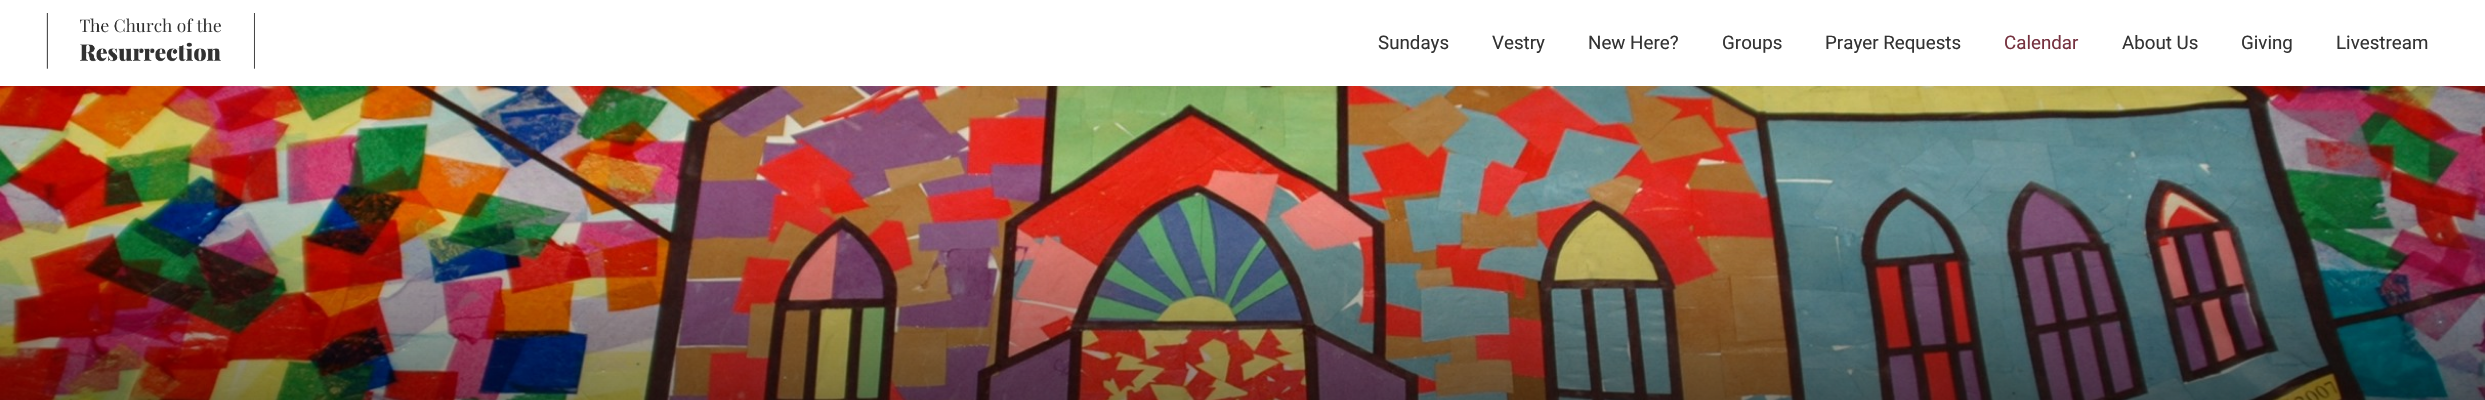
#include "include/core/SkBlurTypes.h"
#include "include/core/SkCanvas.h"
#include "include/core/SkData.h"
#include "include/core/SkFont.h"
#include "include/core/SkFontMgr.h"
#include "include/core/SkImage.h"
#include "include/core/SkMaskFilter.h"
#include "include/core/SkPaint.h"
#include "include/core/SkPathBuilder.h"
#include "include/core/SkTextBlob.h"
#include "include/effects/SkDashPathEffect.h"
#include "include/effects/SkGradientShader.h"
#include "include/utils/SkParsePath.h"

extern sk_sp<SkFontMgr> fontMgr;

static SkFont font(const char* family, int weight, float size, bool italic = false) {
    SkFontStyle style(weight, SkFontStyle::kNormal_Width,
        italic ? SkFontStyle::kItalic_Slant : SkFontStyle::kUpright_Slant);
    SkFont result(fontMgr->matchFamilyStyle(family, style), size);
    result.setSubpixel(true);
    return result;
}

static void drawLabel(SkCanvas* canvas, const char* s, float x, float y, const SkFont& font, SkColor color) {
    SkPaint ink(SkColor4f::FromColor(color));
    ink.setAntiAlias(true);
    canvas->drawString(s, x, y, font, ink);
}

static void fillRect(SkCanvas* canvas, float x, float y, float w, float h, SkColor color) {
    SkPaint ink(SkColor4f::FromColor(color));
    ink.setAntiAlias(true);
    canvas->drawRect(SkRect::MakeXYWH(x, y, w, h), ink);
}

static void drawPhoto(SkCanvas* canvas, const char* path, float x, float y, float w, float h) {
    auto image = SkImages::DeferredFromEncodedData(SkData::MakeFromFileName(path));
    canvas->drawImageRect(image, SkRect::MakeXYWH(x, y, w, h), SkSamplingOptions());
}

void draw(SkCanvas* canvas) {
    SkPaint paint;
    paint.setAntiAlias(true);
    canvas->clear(0xFFFFFFFF);
    drawPhoto(canvas, "assets/img2.png", 0, 86, 2485, 314);
    paint.setColor(0x0D000000);
    paint.setMaskFilter(SkMaskFilter::MakeBlur(kNormal_SkBlurStyle, 12.5f));
    canvas->drawRect(SkRect::MakeXYWH(0, 0, 2485, 86), paint);
    paint.setMaskFilter(nullptr);
    fillRect(canvas, 0, 0, 2485, 86, 0xFFFFFFFF);
    drawPhoto(canvas, "assets/img1.png", 46, 13, 209, 56);
    SkFont font1 = font("Roboto", 400, 18.75f);
    drawLabel(canvas, "Sundays", 1378, 49, font1, 0xFF333333);
    drawLabel(canvas, "Vestry", 1492, 49, font1, 0xFF333333);
    drawLabel(canvas, "New Here?", 1588, 49, font1, 0xFF333333);
    drawLabel(canvas, "Groups", 1722, 49, font1, 0xFF333333);
    drawLabel(canvas, "Prayer Requests", 1825, 49, font1, 0xFF333333);
    drawLabel(canvas, "Calendar", 2004, 49, font1, 0xFF763240);
    drawLabel(canvas, "About Us", 2122, 49, font1, 0xFF333333);
    drawLabel(canvas, "Giving", 2241, 49, font1, 0xFF333333);
    drawLabel(canvas, "Livestream", 2336, 49, font1, 0xFF333333);
}
